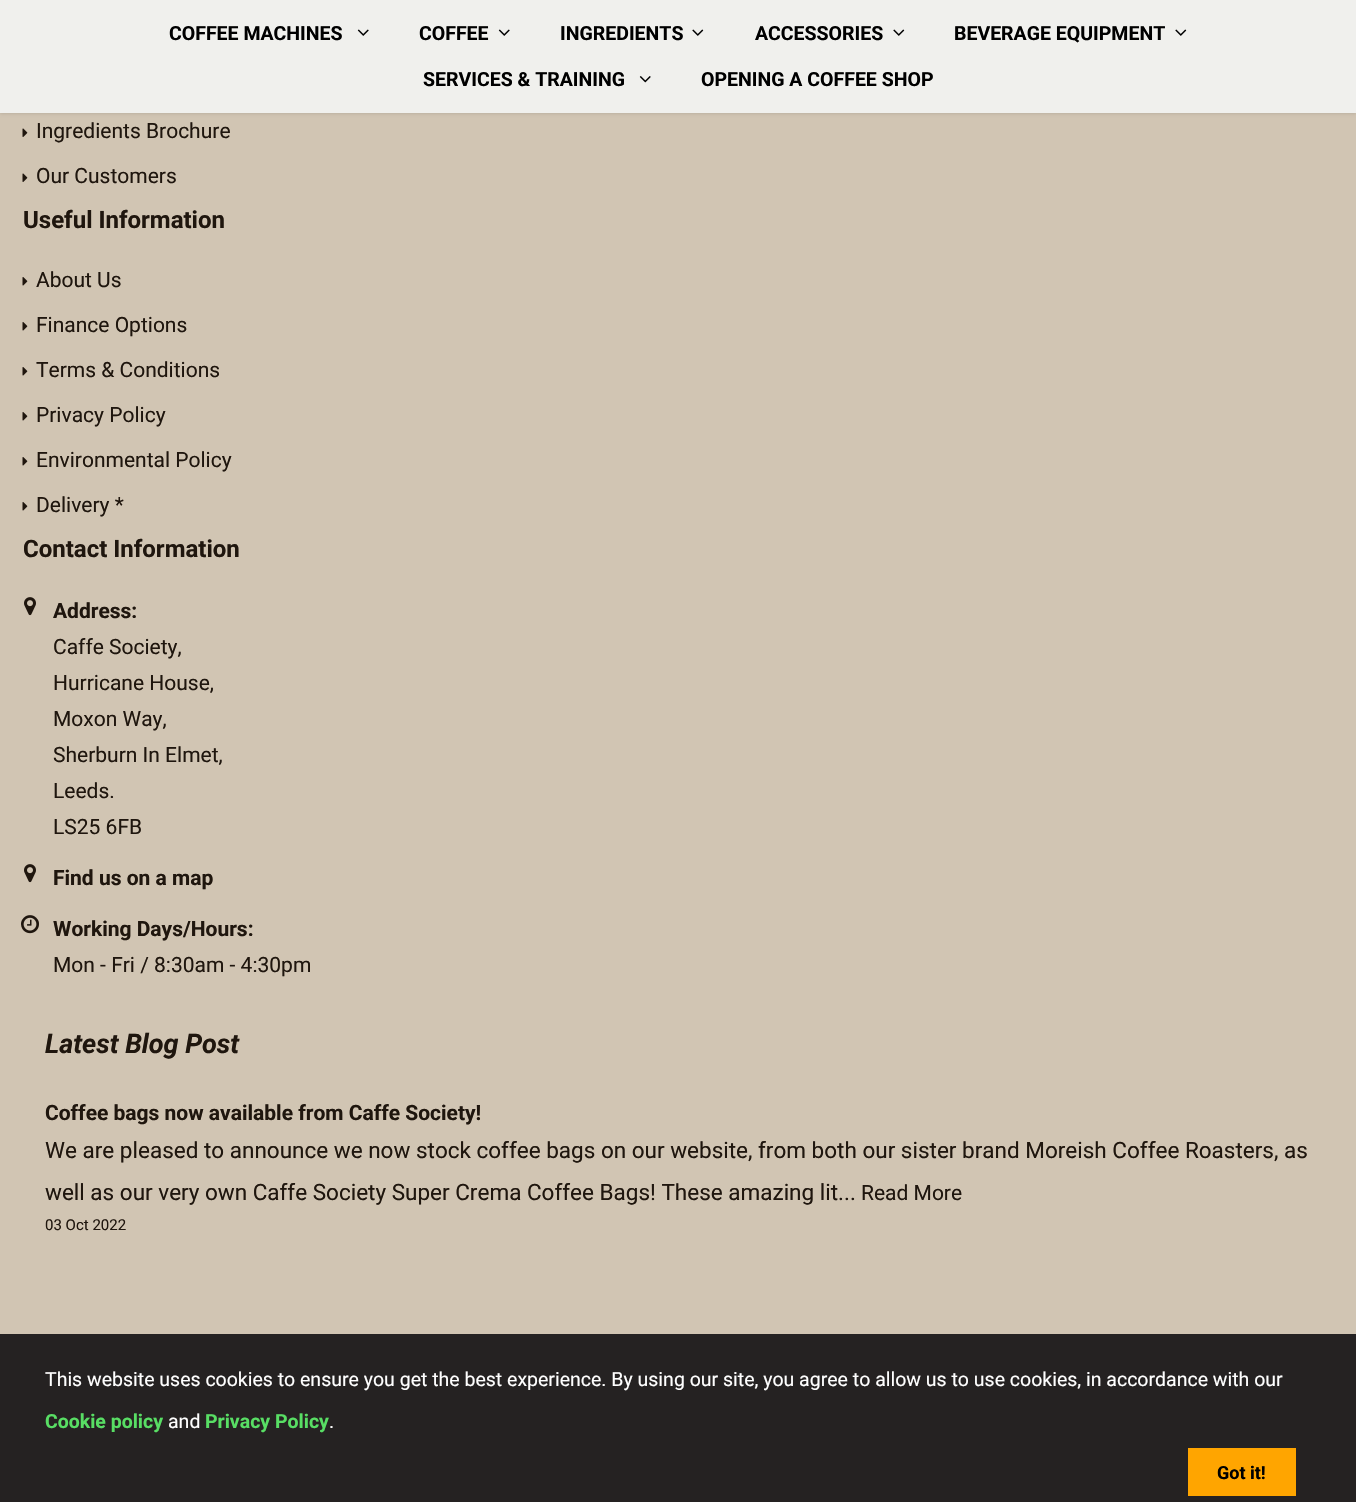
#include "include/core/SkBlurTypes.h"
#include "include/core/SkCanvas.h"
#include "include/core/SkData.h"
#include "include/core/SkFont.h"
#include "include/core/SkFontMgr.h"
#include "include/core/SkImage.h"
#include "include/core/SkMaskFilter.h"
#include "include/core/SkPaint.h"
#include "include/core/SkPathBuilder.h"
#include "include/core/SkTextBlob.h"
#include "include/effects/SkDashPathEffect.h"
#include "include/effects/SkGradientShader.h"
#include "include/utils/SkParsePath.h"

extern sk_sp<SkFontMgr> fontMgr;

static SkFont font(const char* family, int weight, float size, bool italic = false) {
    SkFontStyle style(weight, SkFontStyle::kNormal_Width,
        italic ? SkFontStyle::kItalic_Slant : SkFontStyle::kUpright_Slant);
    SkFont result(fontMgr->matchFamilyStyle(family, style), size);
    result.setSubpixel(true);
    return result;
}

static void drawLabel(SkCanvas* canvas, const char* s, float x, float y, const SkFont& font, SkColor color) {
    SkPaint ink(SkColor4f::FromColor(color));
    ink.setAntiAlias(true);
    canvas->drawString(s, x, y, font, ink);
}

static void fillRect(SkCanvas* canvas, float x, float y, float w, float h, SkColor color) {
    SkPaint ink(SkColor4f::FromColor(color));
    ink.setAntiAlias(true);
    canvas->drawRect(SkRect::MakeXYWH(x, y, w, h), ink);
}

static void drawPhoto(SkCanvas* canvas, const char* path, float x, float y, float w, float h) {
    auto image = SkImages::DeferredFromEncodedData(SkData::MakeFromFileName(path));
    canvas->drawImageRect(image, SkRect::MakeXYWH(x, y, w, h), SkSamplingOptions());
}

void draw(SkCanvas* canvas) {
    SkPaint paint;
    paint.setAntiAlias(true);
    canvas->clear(0xFFD1C5B3);
    paint.setColor(0x1A000000);
    paint.setMaskFilter(SkMaskFilter::MakeBlur(kNormal_SkBlurStyle, 1.5f));
    canvas->drawRect(SkRect::MakeXYWH(0, 2, 1356, 112), paint);
    paint.setMaskFilter(nullptr);
    fillRect(canvas, 0, 0, 1356, 113, 0xFFF0F0ED);
    SkFont font1 = font("Roboto", 700, 19.5f);
    drawLabel(canvas, "COFFEE MACHINES", 169, 40, font1, 0xFF000000);
    drawPhoto(canvas, "assets/img1.png", 357, 29, 12, 7);
    drawLabel(canvas, "COFFEE", 419, 40, font1, 0xFF000000);
    drawPhoto(canvas, "assets/img1.png", 498, 29, 12, 7);
    drawLabel(canvas, "INGREDIENTS", 560, 40, font1, 0xFF000000);
    drawPhoto(canvas, "assets/img2.png", 692, 29, 12, 7);
    drawLabel(canvas, "ACCESSORIES", 755, 40, font1, 0xFF000000);
    drawPhoto(canvas, "assets/img2.png", 893, 29, 12, 7);
    drawLabel(canvas, "BEVERAGE EQUIPMENT", 954, 40, font1, 0xFF000000);
    drawPhoto(canvas, "assets/img2.png", 1175, 29, 12, 7);
    drawLabel(canvas, "SERVICES & TRAINING", 423, 86, font1, 0xFF000000);
    drawPhoto(canvas, "assets/img3.png", 639, 76, 12, 7);
    drawLabel(canvas, "OPENING A COFFEE SHOP", 701, 86, font1, 0xFF000000);
    drawPhoto(canvas, "assets/img4.png", 22, 128, 6, 9);
    SkFont font2 = font("Roboto", 400, 21);
    drawLabel(canvas, "Ingredients Brochure", 36, 138, font2, 0xFF1F160E);
    drawPhoto(canvas, "assets/img4.png", 22, 173, 6, 9);
    drawLabel(canvas, "Our Customers", 36, 183, font2, 0xFF1F160E);
    SkFont font3 = font("Roboto", 700, 24);
    drawLabel(canvas, "Useful Information", 23, 228, font3, 0xFF1F160E);
    drawPhoto(canvas, "assets/img5.png", 22, 277, 6, 9);
    drawLabel(canvas, "About Us", 36, 287, font2, 0xFF1F160E);
    drawPhoto(canvas, "assets/img5.png", 22, 322, 6, 9);
    drawLabel(canvas, "Finance Options", 36, 332, font2, 0xFF1F160E);
    drawPhoto(canvas, "assets/img5.png", 22, 367, 6, 9);
    drawLabel(canvas, "Terms & Conditions", 36, 377, font2, 0xFF1F160E);
    drawPhoto(canvas, "assets/img5.png", 22, 412, 6, 9);
    drawLabel(canvas, "Privacy Policy", 36, 422, font2, 0xFF1F160E);
    drawPhoto(canvas, "assets/img5.png", 22, 457, 6, 9);
    drawLabel(canvas, "Environmental Policy", 36, 467, font2, 0xFF1F160E);
    drawPhoto(canvas, "assets/img5.png", 22, 502, 6, 9);
    drawLabel(canvas, "Delivery *", 36, 512, font2, 0xFF1F160E);
    drawLabel(canvas, "Contact Information", 23, 557, font3, 0xFF1F160E);
    drawPhoto(canvas, "assets/img6.png", 24, 597, 12, 19);
    SkFont font4 = font("Roboto", 700, 21);
    drawLabel(canvas, "Address:", 53, 618, font4, 0xFF1F160E);
    drawLabel(canvas, "Caffe Society,", 53, 654, font2, 0xFF1F160E);
    drawLabel(canvas, "Hurricane House,", 53, 690, font2, 0xFF1F160E);
    drawLabel(canvas, "Moxon Way,", 53, 726, font2, 0xFF1F160E);
    drawLabel(canvas, "Sherburn In Elmet,", 53, 762, font2, 0xFF1F160E);
    drawLabel(canvas, "Leeds.", 53, 798, font2, 0xFF1F160E);
    drawLabel(canvas, "LS25 6FB", 53, 834, font2, 0xFF1F160E);
    drawPhoto(canvas, "assets/img6.png", 24, 864, 12, 19);
    drawLabel(canvas, "Find us on a map", 53, 885, font4, 0xFF1F160E);
    drawPhoto(canvas, "assets/img7.png", 21, 915, 18, 19);
    drawLabel(canvas, "Working Days/Hours:", 53, 936, font4, 0xFF1F160E);
    drawLabel(canvas, "Mon - Fri / 8:30am - 4:30pm", 53, 972, font2, 0xFF1F160E);
    SkFont font5 = font("Roboto", 700, 27, true);
    drawLabel(canvas, "Latest Blog Post", 45, 1053, font5, 0xFF1F160E);
    drawLabel(canvas, "Coffee bags now available from Caffe Society!", 45, 1120, font4, 0xFF1F160E);
    SkFont font6 = font("Roboto", 400, 22.5f);
    drawLabel(canvas, "We are pleased to announce we now stock coffee bags on our website, from both our sister brand Moreish Coffee Roasters, as", 45, 1158, font6, 0xFF1F160E);
    drawLabel(canvas, "well as our very own Caffe Society Super Crema Coffee Bags! These amazing lit...", 45, 1200, font6, 0xFF1F160E);
    drawLabel(canvas, "Read More", 861, 1200, font2, 0xFF1F160E);
    SkFont font7 = font("Roboto", 400, 15);
    drawLabel(canvas, "03 Oct 2022", 45, 1230, font7, 0xFF1F160E);
    fillRect(canvas, 0, 1334, 1356, 168, 0xFF252222);
    SkFont font8 = font("Roboto", 400, 19.5f);
    drawLabel(canvas, "This website uses cookies to ensure you get the best experience. By using our site, you agree to allow us to use cookies, in accordance with our", 45, 1386, font8, 0xFFFFFFFF);
    drawLabel(canvas, "Cookie policy", 45, 1428, font1, 0xFF58DE64);
    drawLabel(canvas, "and", 168, 1428, font8, 0xFFFFFFFF);
    drawLabel(canvas, "Privacy Policy", 205, 1428, font1, 0xFF58DE64);
    drawLabel(canvas, ".", 329, 1428, font8, 0xFFFFFFFF);
    fillRect(canvas, 1188, 1448, 108, 48, 0xFFFFA500);
    SkFont font9 = font("Roboto", 700, 18);
    drawLabel(canvas, "Got it!", 1217, 1479, font9, 0xFF000000);
}
